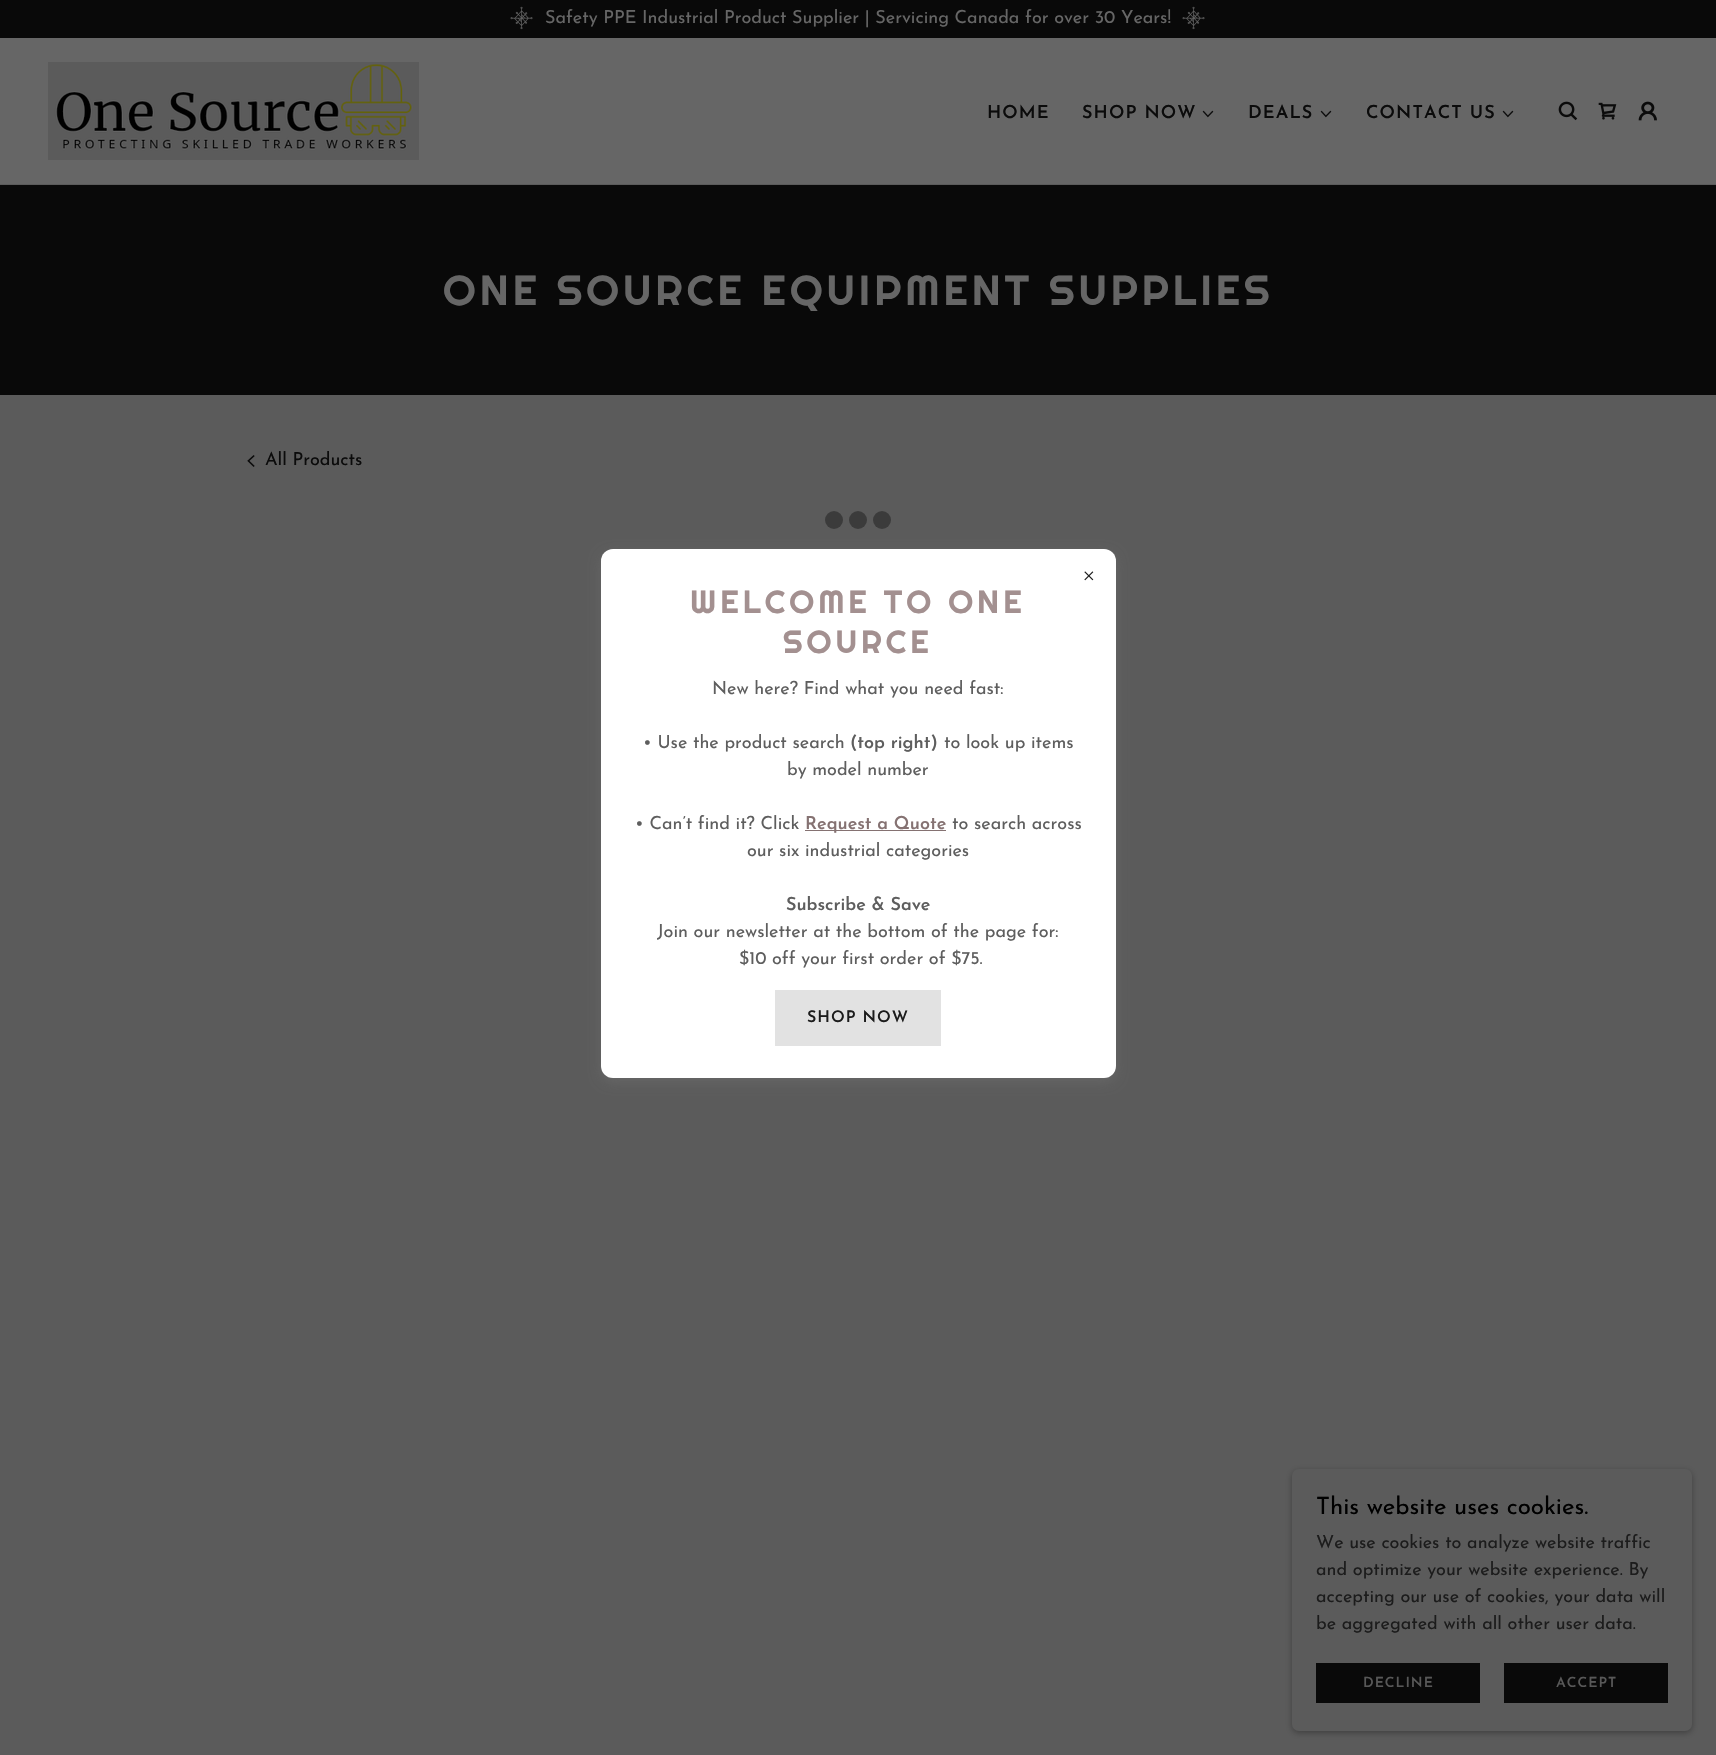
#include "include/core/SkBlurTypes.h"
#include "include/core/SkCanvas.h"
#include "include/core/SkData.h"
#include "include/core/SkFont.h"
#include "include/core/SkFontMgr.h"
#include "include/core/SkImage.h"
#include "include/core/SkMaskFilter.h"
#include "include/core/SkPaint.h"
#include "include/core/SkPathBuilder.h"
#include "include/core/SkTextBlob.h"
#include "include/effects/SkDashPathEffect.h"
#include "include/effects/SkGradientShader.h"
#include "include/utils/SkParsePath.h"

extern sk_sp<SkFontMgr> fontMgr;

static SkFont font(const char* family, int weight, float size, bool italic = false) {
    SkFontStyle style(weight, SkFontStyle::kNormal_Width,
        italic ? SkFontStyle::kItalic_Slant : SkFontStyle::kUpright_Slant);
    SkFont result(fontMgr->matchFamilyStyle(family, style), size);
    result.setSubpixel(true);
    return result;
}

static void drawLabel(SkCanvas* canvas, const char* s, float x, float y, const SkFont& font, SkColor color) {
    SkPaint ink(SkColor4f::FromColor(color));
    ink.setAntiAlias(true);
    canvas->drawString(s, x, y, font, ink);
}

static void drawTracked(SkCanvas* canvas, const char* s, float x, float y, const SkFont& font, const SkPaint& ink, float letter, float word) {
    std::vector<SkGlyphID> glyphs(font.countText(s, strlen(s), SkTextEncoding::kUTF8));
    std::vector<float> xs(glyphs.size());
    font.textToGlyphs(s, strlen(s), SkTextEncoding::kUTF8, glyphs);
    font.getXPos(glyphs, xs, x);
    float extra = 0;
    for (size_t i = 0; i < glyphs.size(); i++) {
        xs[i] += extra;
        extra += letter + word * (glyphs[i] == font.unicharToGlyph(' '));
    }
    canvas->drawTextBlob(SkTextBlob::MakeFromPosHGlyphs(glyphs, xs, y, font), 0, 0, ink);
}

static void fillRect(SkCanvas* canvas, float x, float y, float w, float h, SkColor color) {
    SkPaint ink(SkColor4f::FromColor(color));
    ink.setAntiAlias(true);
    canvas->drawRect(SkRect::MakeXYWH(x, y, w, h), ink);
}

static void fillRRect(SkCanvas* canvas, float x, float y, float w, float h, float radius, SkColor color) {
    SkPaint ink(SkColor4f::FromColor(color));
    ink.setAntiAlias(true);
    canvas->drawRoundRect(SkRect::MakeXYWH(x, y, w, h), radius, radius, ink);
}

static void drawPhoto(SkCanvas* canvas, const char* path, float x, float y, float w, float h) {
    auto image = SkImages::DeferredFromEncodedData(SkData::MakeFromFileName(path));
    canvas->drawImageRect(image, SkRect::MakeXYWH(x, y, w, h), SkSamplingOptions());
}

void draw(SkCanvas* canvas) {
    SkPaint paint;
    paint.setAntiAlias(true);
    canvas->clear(0xFF090909);
    fillRect(canvas, 0, 184, 1716, 1, 0xFF5B5B5B);
    drawPhoto(canvas, "assets/img1.png", 510, 6, 23, 24);
    SkFont font1 = font("Josefin Sans", 400, 18);
    drawLabel(canvas, "Safety PPE Industrial Product Supplier | Servicing Canada for over 30 Years!", 545, 23, font1, 0xFF666666);
    drawPhoto(canvas, "assets/img1.png", 1182, 6, 23, 24);
    fillRect(canvas, 0, 38, 1716, 146, 0xFF666666);
    drawPhoto(canvas, "assets/img2.png", 48, 62, 371, 98);
    SkFont font2 = font("Josefin Sans", 600, 18);
    paint.setColor(0xFF0B0B0B);
    drawTracked(canvas, "HOME", 987, 118, font2, paint, 1.1f, 0);
    drawTracked(canvas, "SHOP NOW", 1082, 118, font2, paint, 1.1f, 0);
    drawPhoto(canvas, "assets/img3.png", 1202, 110, 12, 8);
    drawTracked(canvas, "DEALS", 1248, 118, font2, paint, 1.1f, 0);
    drawPhoto(canvas, "assets/img3.png", 1320, 110, 12, 8);
    drawTracked(canvas, "CONTACT US", 1366, 118, font2, paint, 1.1f, 0);
    drawPhoto(canvas, "assets/img3.png", 1502, 110, 12, 8);
    drawPhoto(canvas, "assets/img4.png", 1558, 101, 20, 20);
    drawPhoto(canvas, "assets/img5.png", 1598, 102, 19, 18);
    drawPhoto(canvas, "assets/img6.png", 1638, 101, 19, 20);
    SkFont font3 = font("Righteous", 400, 42);
    paint.setColor(0xFF666666);
    drawTracked(canvas, "ONE SOURCE EQUIPMENT SUPPLIES", 443, 305, font3, paint, 4, 0);
    fillRect(canvas, 0, 395, 1716, 1360, 0xFF5B5B5B);
    drawPhoto(canvas, "assets/img7.png", 247, 455, 8, 12);
    drawLabel(canvas, "All Products", 265, 465, font1, 0xFF0B0B0B);
    paint.setColor(0xFF3B3B3B);
    canvas->drawCircle(834, 520, 9, paint);
    canvas->drawCircle(858, 520, 9, paint);
    canvas->drawCircle(882, 520, 9, paint);
    paint.setColor(0x66757575);
    paint.setMaskFilter(SkMaskFilter::MakeBlur(kNormal_SkBlurStyle, 6));
    canvas->drawRoundRect(SkRect::MakeXYWH(601, 553, 515, 529), 12, 12, paint);
    paint.setMaskFilter(nullptr);
    fillRRect(canvas, 601, 549, 515, 529, 12, 0xFFFFFFFF);
    drawPhoto(canvas, "assets/img8.png", 1084, 571, 10, 10);
    SkFont font4 = font("Righteous", 400, 32);
    paint.setColor(0xFFA39090);
    drawTracked(canvas, "WELCOME TO ONE", 690, 613, font4, paint, 4, 0);
    drawTracked(canvas, "SOURCE", 783, 653, font4, paint, 4, 0);
    drawLabel(canvas, "New here? Find what you need fast:", 712, 694, font1, 0xFF5E5E5E);
    drawLabel(canvas, "• Use the product search", 643, 748, font1, 0xFF5E5E5E);
    drawLabel(canvas, "(top right)", 850, 748, font2, 0xFF5E5E5E);
    drawLabel(canvas, "to look up items", 944, 748, font1, 0xFF5E5E5E);
    drawLabel(canvas, "by model number", 787, 775, font1, 0xFF5E5E5E);
    drawLabel(canvas, "• Can’t find it? Click", 635, 829, font1, 0xFF5E5E5E);
    fillRect(canvas, 805, 830, 141, 1, 0xFF857272);
    drawLabel(canvas, "Request a Quote", 805, 829, font2, 0xFF857272);
    drawLabel(canvas, "to search across", 952, 829, font1, 0xFF5E5E5E);
    drawLabel(canvas, "our six industrial categories", 747, 856, font1, 0xFF5E5E5E);
    drawLabel(canvas, "Subscribe & Save", 786, 910, font2, 0xFF5E5E5E);
    drawLabel(canvas, "Join our newsletter at the bottom of the page for:", 657, 937, font1, 0xFF5E5E5E);
    drawLabel(canvas, "$10 off your first order of $75.", 739, 964, font1, 0xFF5E5E5E);
    fillRect(canvas, 775, 990, 166, 56, 0xFFE2E2E2);
    SkFont font5 = font("Josefin Sans", 600, 16);
    paint.setColor(0xFF1C1C1C);
    drawTracked(canvas, "SHOP NOW", 807, 1022, font5, paint, 1, 0);
    paint.setColor(0x4D000000);
    paint.setMaskFilter(SkMaskFilter::MakeBlur(kNormal_SkBlurStyle, 3));
    canvas->drawRoundRect(SkRect::MakeXYWH(1292, 1471, 400, 262), 7, 7, paint);
    paint.setMaskFilter(nullptr);
    fillRRect(canvas, 1292, 1469, 400, 262, 7, 0xFF5B5B5B);
    SkFont font6 = font("Josefin Sans", 400, 24);
    drawLabel(canvas, "This website uses cookies.", 1316, 1514, font6, 0xFF000000);
    drawLabel(canvas, "We use cookies to analyze website traffic", 1316, 1548, font1, 0xFF1C1C1C);
    drawLabel(canvas, "and optimize your website experience. By", 1316, 1575, font1, 0xFF1C1C1C);
    drawLabel(canvas, "accepting our use of cookies, your data will", 1316, 1602, font1, 0xFF1C1C1C);
    drawLabel(canvas, "be aggregated with all other user data.", 1316, 1629, font1, 0xFF1C1C1C);
    fillRect(canvas, 1316, 1663, 164, 40, 0xFF090909);
    SkFont font7 = font("Josefin Sans", 600, 14);
    paint.setColor(0xFF585858);
    drawTracked(canvas, "DECLINE", 1363, 1687, font7, paint, 1, 0);
    fillRect(canvas, 1504, 1663, 164, 40, 0xFF090909);
    drawTracked(canvas, "ACCEPT", 1556, 1687, font7, paint, 1, 0);
}
